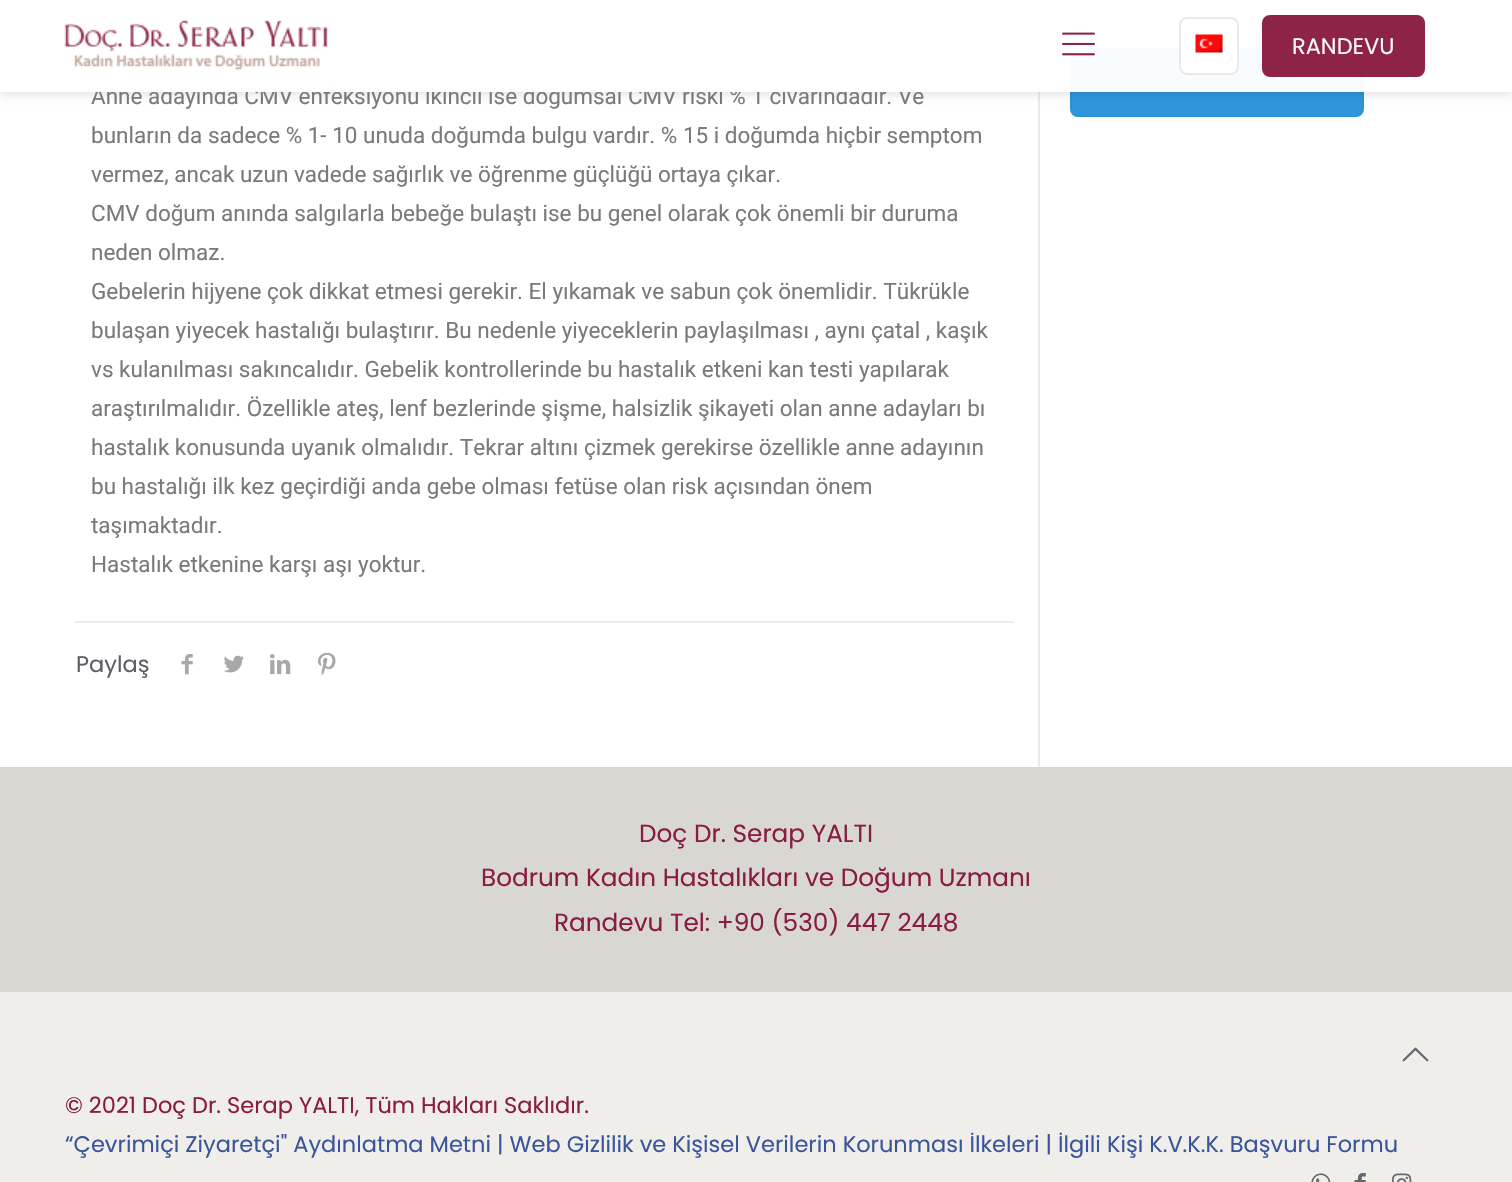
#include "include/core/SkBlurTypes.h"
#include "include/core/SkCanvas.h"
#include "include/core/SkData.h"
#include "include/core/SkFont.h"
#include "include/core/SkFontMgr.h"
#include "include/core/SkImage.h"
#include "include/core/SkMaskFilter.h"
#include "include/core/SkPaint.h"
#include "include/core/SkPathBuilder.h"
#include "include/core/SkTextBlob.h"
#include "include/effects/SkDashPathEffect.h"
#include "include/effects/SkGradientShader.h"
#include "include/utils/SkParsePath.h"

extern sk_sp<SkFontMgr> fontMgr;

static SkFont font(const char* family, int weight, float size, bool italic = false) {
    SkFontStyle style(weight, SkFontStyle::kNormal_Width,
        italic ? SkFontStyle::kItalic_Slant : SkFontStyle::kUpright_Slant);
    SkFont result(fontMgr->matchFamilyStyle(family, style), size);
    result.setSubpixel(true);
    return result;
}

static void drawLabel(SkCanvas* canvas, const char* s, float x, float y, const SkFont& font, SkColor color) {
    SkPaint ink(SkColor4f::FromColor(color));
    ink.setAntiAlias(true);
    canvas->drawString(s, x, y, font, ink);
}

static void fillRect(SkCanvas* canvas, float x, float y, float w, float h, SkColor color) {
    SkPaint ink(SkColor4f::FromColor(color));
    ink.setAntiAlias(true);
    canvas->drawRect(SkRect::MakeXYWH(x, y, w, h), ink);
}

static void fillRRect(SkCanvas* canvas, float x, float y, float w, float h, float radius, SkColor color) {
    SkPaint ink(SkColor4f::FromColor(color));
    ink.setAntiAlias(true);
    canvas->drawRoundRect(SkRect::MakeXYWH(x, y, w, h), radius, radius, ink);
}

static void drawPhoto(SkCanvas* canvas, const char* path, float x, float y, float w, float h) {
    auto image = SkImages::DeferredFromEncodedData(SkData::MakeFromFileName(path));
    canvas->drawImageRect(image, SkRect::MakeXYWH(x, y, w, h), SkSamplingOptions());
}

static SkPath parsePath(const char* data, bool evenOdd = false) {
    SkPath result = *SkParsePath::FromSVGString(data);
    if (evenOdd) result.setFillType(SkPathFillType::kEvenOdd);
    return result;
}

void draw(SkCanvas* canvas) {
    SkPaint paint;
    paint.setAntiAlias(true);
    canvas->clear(0xFFFFFFFF);
    fillRect(canvas, 1038, 0, 2, 767, 0xFFEBEBEB);
    fillRect(canvas, 1070, 2, 442, 2, 0xFFE9E9E9);
    fillRRect(canvas, 1070, 48, 294, 69, 8, 0xFF2E96DB);
    paint.setStroke(true);
    paint.setStrokeWidth(2);
    paint.setColor(0x08000000);
    canvas->drawRect(SkRect::MakeXYWH(1071, 49, 292, 67), paint);
    canvas->save();
    canvas->clipPath(parsePath("M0 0H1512V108H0ZM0 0H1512V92H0Z", true), true);
    paint.setStroke(false);
    paint.setColor(0x1A000000);
    paint.setMaskFilter(SkMaskFilter::MakeBlur(kNormal_SkBlurStyle, 4));
    canvas->drawRect(SkRect::MakeXYWH(0, 3, 1512, 92), paint);
    paint.setMaskFilter(nullptr);
    canvas->restore();
    SkFont font1 = font("Roboto", 400, 22.5f);
    drawLabel(canvas, "Anne adayında CMV enfeksiyonu ikincil ise doğumsal CMV riski % 1 civarındadır. Ve", 91, 104, font1, 0xFF7A7A7A);
    fillRect(canvas, 0, 0, 1512, 92, 0xF7FFFFFF);
    drawPhoto(canvas, "assets/img1.png", 64, 19, 264, 52);
    drawPhoto(canvas, "assets/img2.png", 1062, 32, 33, 24);
    fillRRect(canvas, 1179, 17, 60, 58, 8, 0xF7FFFFFF);
    paint.setStroke(true);
    paint.setColor(0xF7E8E8E8);
    canvas->drawRoundRect(SkRect::MakeXYWH(1180, 18, 58, 56), 7, 7, paint);
    drawPhoto(canvas, "assets/img3.png", 1195, 34, 28, 19);
    fillRRect(canvas, 1262, 15, 163, 62, 8, 0xF7891C40);
    SkFont font2 = font("Poppins", 400, 22.5f);
    drawLabel(canvas, "RANDEVU", 1292, 54, font2, 0xFFFCF8F9);
    drawLabel(canvas, "bunların da sadece % 1- 10 unuda doğumda bulgu vardır. % 15 i doğumda hiçbir semptom", 91, 143, font1, 0xFF7A7A7A);
    drawLabel(canvas, "vermez, ancak uzun vadede sağırlık ve öğrenme güçlüğü ortaya çıkar.", 91, 182, font1, 0xFF7A7A7A);
    drawLabel(canvas, "CMV doğum anında salgılarla bebeğe bulaştı ise bu genel olarak çok önemli bir duruma", 91, 221, font1, 0xFF7A7A7A);
    drawLabel(canvas, "neden olmaz.", 91, 260, font1, 0xFF7A7A7A);
    drawLabel(canvas, "Gebelerin hijyene çok dikkat etmesi gerekir. El yıkamak ve sabun çok önemlidir. Tükrükle", 91, 299, font1, 0xFF7A7A7A);
    drawLabel(canvas, "bulaşan yiyecek hastalığı bulaştırır. Bu nedenle yiyeceklerin paylaşılması , aynı çatal , kaşık", 91, 338, font1, 0xFF7A7A7A);
    drawLabel(canvas, "vs kulanılması sakıncalıdır. Gebelik kontrollerinde bu hastalık etkeni kan testi yapılarak", 91, 377, font1, 0xFF7A7A7A);
    drawLabel(canvas, "araştırılmalıdır. Özellikle ateş, lenf bezlerinde şişme, halsizlik şikayeti olan anne adayları bı", 91, 416, font1, 0xFF7A7A7A);
    drawLabel(canvas, "hastalık konusunda uyanık olmalıdır. Tekrar altını çizmek gerekirse özellikle anne adayının", 91, 455, font1, 0xFF7A7A7A);
    drawLabel(canvas, "bu hastalığı ilk kez geçirdiği anda gebe olması fetüse olan risk açısından önem", 91, 494, font1, 0xFF7A7A7A);
    drawLabel(canvas, "taşımaktadır.", 91, 533, font1, 0xFF7A7A7A);
    drawLabel(canvas, "Hastalık etkenine karşı aşı yoktur.", 91, 572, font1, 0xFF7A7A7A);
    fillRect(canvas, 75, 621, 939, 2, 0xFFEBEBEB);
    drawLabel(canvas, "Paylaş", 76, 672, font2, 0xFF5D5D64);
    drawPhoto(canvas, "assets/img4.png", 181, 654, 12, 21);
    drawPhoto(canvas, "assets/img5.png", 223, 655, 21, 18);
    drawPhoto(canvas, "assets/img6.png", 270, 654, 21, 21);
    drawPhoto(canvas, "assets/img7.png", 318, 652, 18, 24);
    fillRect(canvas, 0, 992, 1512, 190, 0xFFEFEEEA);
    fillRect(canvas, 0, 767, 1512, 223, 0xFFD8D7D2);
    SkFont font3 = font("Poppins", 400, 24.75f);
    drawLabel(canvas, "Doç Dr. Serap YALTI", 639, 842, font3, 0xFF891C40);
    drawLabel(canvas, "Bodrum Kadın Hastalıkları ve Doğum Uzmanı", 481, 886, font3, 0xFF891C40);
    drawLabel(canvas, "Randevu Tel: +90 (530) 447 2448", 554, 931, font3, 0xFF891C40);
    fillRect(canvas, 0, 990, 1512, 2, 0xFFD7D6D3);
    drawPhoto(canvas, "assets/img8.png", 1402, 1047, 27, 15);
    drawLabel(canvas, "© 2021 Doç Dr. Serap YALTI, Tüm Hakları Saklıdır.", 65, 1113, font2, 0xFF891C40);
    drawLabel(canvas, "“Çevrimiçi Ziyaretçi\" Aydınlatma Metni | Web Gizlilik ve Kişisel Verilerin Korunması İlkeleri | İlgili Kişi K.V.K.K. Başvuru Formu", 65, 1152, font2, 0xFF3B559A);
    drawPhoto(canvas, "assets/img9.png", 1311, 1173, 20, 9);
    drawPhoto(canvas, "assets/img10.png", 1354, 1173, 12, 9);
    drawPhoto(canvas, "assets/img11.png", 1392, 1173, 20, 9);
}
